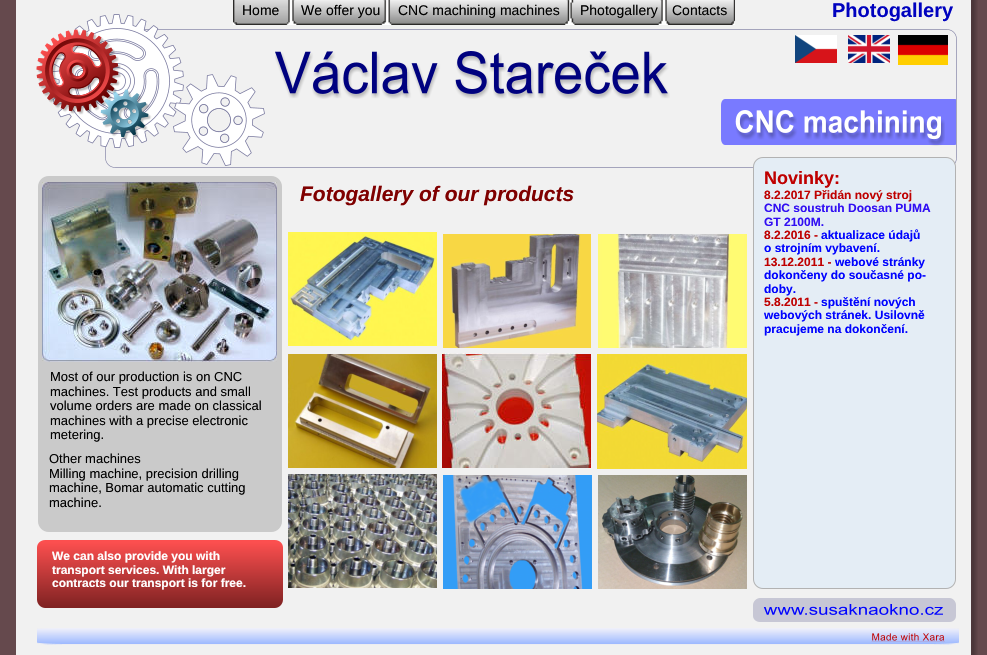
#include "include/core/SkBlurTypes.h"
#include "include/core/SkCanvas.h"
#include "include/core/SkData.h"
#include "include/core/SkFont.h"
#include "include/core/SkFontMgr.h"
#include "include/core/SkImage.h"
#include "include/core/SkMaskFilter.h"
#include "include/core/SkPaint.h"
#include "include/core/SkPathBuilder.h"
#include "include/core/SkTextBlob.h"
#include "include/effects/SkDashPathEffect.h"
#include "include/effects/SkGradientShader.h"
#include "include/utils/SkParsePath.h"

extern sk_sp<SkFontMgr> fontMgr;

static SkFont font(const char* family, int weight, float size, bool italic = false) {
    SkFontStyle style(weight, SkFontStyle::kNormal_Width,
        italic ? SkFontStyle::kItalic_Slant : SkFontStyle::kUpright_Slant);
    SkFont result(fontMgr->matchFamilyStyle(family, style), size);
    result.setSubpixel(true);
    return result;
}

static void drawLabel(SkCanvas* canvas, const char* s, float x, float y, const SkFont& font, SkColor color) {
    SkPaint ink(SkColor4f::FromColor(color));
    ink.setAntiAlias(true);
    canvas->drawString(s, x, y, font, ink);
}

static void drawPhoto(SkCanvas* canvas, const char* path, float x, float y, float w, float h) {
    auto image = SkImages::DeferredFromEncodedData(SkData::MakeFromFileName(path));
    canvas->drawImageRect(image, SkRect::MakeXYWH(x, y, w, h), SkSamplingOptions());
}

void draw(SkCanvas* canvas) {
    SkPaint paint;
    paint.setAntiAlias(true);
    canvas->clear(0xFF65494D);
    drawPhoto(canvas, "assets/img1.png", 16, 0, 962, 655);
    drawPhoto(canvas, "assets/img4.png", 105, 29, 852, 139);
    drawPhoto(canvas, "assets/img3.png", 36, 14, 229, 152);
    drawPhoto(canvas, "assets/img2.png", 233, 0, 502, 25);
    SkFont font1 = font("Liberation Sans", 700, 20);
    drawLabel(canvas, "Photogallery", 832, 17, font1, 0xFF0002BF);
    SkFont font2 = font("Liberation Sans", 400, 14);
    drawLabel(canvas, "Home", 242, 15, font2, 0xFF000000);
    drawLabel(canvas, "We offer you", 301, 15, font2, 0xFF000000);
    drawLabel(canvas, "CNC machining machines", 398, 15, font2, 0xFF000000);
    drawLabel(canvas, "Photogallery", 580, 15, font2, 0xFF000000);
    drawLabel(canvas, "Contacts", 672, 15, font2, 0xFF000000);
    drawPhoto(canvas, "assets/img5.png", 275, 51, 395, 48);
    drawPhoto(canvas, "assets/img6.png", 795, 35, 42, 28);
    drawPhoto(canvas, "assets/img7.png", 848, 35, 42, 28);
    drawPhoto(canvas, "assets/img8.png", 898, 35, 50, 30);
    drawPhoto(canvas, "assets/img9.png", 721, 99, 235, 47);
    drawPhoto(canvas, "assets/img10.png", 753, 157, 203, 432);
    drawPhoto(canvas, "assets/img11.png", 38, 176, 244, 356);
    SkFont font3 = font("Liberation Sans", 700, 18);
    drawLabel(canvas, "Novinky:", 764, 184, font3, 0xFFBF0000);
    SkFont font4 = font("Liberation Sans", 700, 12);
    drawLabel(canvas, "8.2.2017 Přidán nový stroj", 764, 199, font4, 0xFFBF0000);
    drawLabel(canvas, "CNC soustruh Doosan PUMA", 764, 212, font4, 0xFF310FF3);
    drawLabel(canvas, "GT 2100M.", 764, 226, font4, 0xFF310FF3);
    drawLabel(canvas, "8.2.2016 -", 764, 239, font4, 0xFFBF0000);
    drawLabel(canvas, "aktualizace údajů", 821, 239, font4, 0xFF0003FF);
    drawLabel(canvas, "o strojním vybavení.", 764, 252, font4, 0xFF0003FF);
    drawLabel(canvas, "13.12.2011 -", 764, 266, font4, 0xFFBF0000);
    drawLabel(canvas, "webové stránky", 835, 266, font4, 0xFF0003FF);
    drawLabel(canvas, "dokončeny do současné po-", 764, 279, font4, 0xFF0003FF);
    drawLabel(canvas, "doby.", 764, 293, font4, 0xFF0003FF);
    drawLabel(canvas, "5.8.2011 -", 764, 306, font4, 0xFFBF0000);
    drawLabel(canvas, "spuštění nových", 821, 306, font4, 0xFF0003FF);
    drawLabel(canvas, "webových stránek. Usilovně", 764, 319, font4, 0xFF0003FF);
    drawLabel(canvas, "pracujeme na dokončení.", 764, 333, font4, 0xFF0003FF);
    drawPhoto(canvas, "assets/img12.png", 42, 182, 235, 180);
    SkFont font5 = font("Liberation Sans", 700, 21, true);
    drawLabel(canvas, "Fotogallery of our products", 300, 201, font5, 0xFF7F0000);
    drawPhoto(canvas, "assets/img13.png", 288, 232, 149, 114);
    drawPhoto(canvas, "assets/img14.png", 443, 234, 148, 114);
    drawPhoto(canvas, "assets/img15.png", 598, 234, 149, 114);
    SkFont font6 = font("Liberation Sans", 400, 13);
    drawLabel(canvas, "Most of our production is on CNC", 50, 381, font6, 0xFF000000);
    drawLabel(canvas, "machines. Test products and small", 50, 396, font6, 0xFF000000);
    drawLabel(canvas, "volume orders are made on classical", 50, 410, font6, 0xFF000000);
    drawLabel(canvas, "machines with a precise electronic", 50, 425, font6, 0xFF000000);
    drawLabel(canvas, "metering.", 50, 439, font6, 0xFF000000);
    drawPhoto(canvas, "assets/img16.png", 288, 354, 149, 114);
    drawPhoto(canvas, "assets/img17.png", 442, 353, 149, 115);
    drawPhoto(canvas, "assets/img18.png", 597, 354, 150, 115);
    drawLabel(canvas, "Other machines", 49, 463, font6, 0xFF000000);
    drawLabel(canvas, "Milling machine, precision drilling", 49, 478, font6, 0xFF000000);
    drawLabel(canvas, "machine, Bomar automatic cutting", 49, 492, font6, 0xFF000000);
    drawLabel(canvas, "machine.", 49, 507, font6, 0xFF000000);
    drawPhoto(canvas, "assets/img19.png", 288, 474, 149, 114);
    drawPhoto(canvas, "assets/img20.png", 443, 475, 149, 114);
    drawPhoto(canvas, "assets/img21.png", 598, 475, 149, 114);
    drawPhoto(canvas, "assets/img22.png", 37, 540, 246, 68);
    drawLabel(canvas, "We can also provide you with", 52, 560, font4, 0xFFFFFFFF);
    drawLabel(canvas, "transport services. With larger", 52, 574, font4, 0xFFFFFFFF);
    drawLabel(canvas, "contracts our transport is for free.", 52, 587, font4, 0xFFFFFFFF);
    drawPhoto(canvas, "assets/img23.png", 753, 598, 203, 24);
    drawPhoto(canvas, "assets/img24.png", 763, 604, 180, 11);
    drawPhoto(canvas, "assets/img25.png", 37, 628, 922, 17);
    drawPhoto(canvas, "assets/img26.png", 871, 633, 74, 9);
}
